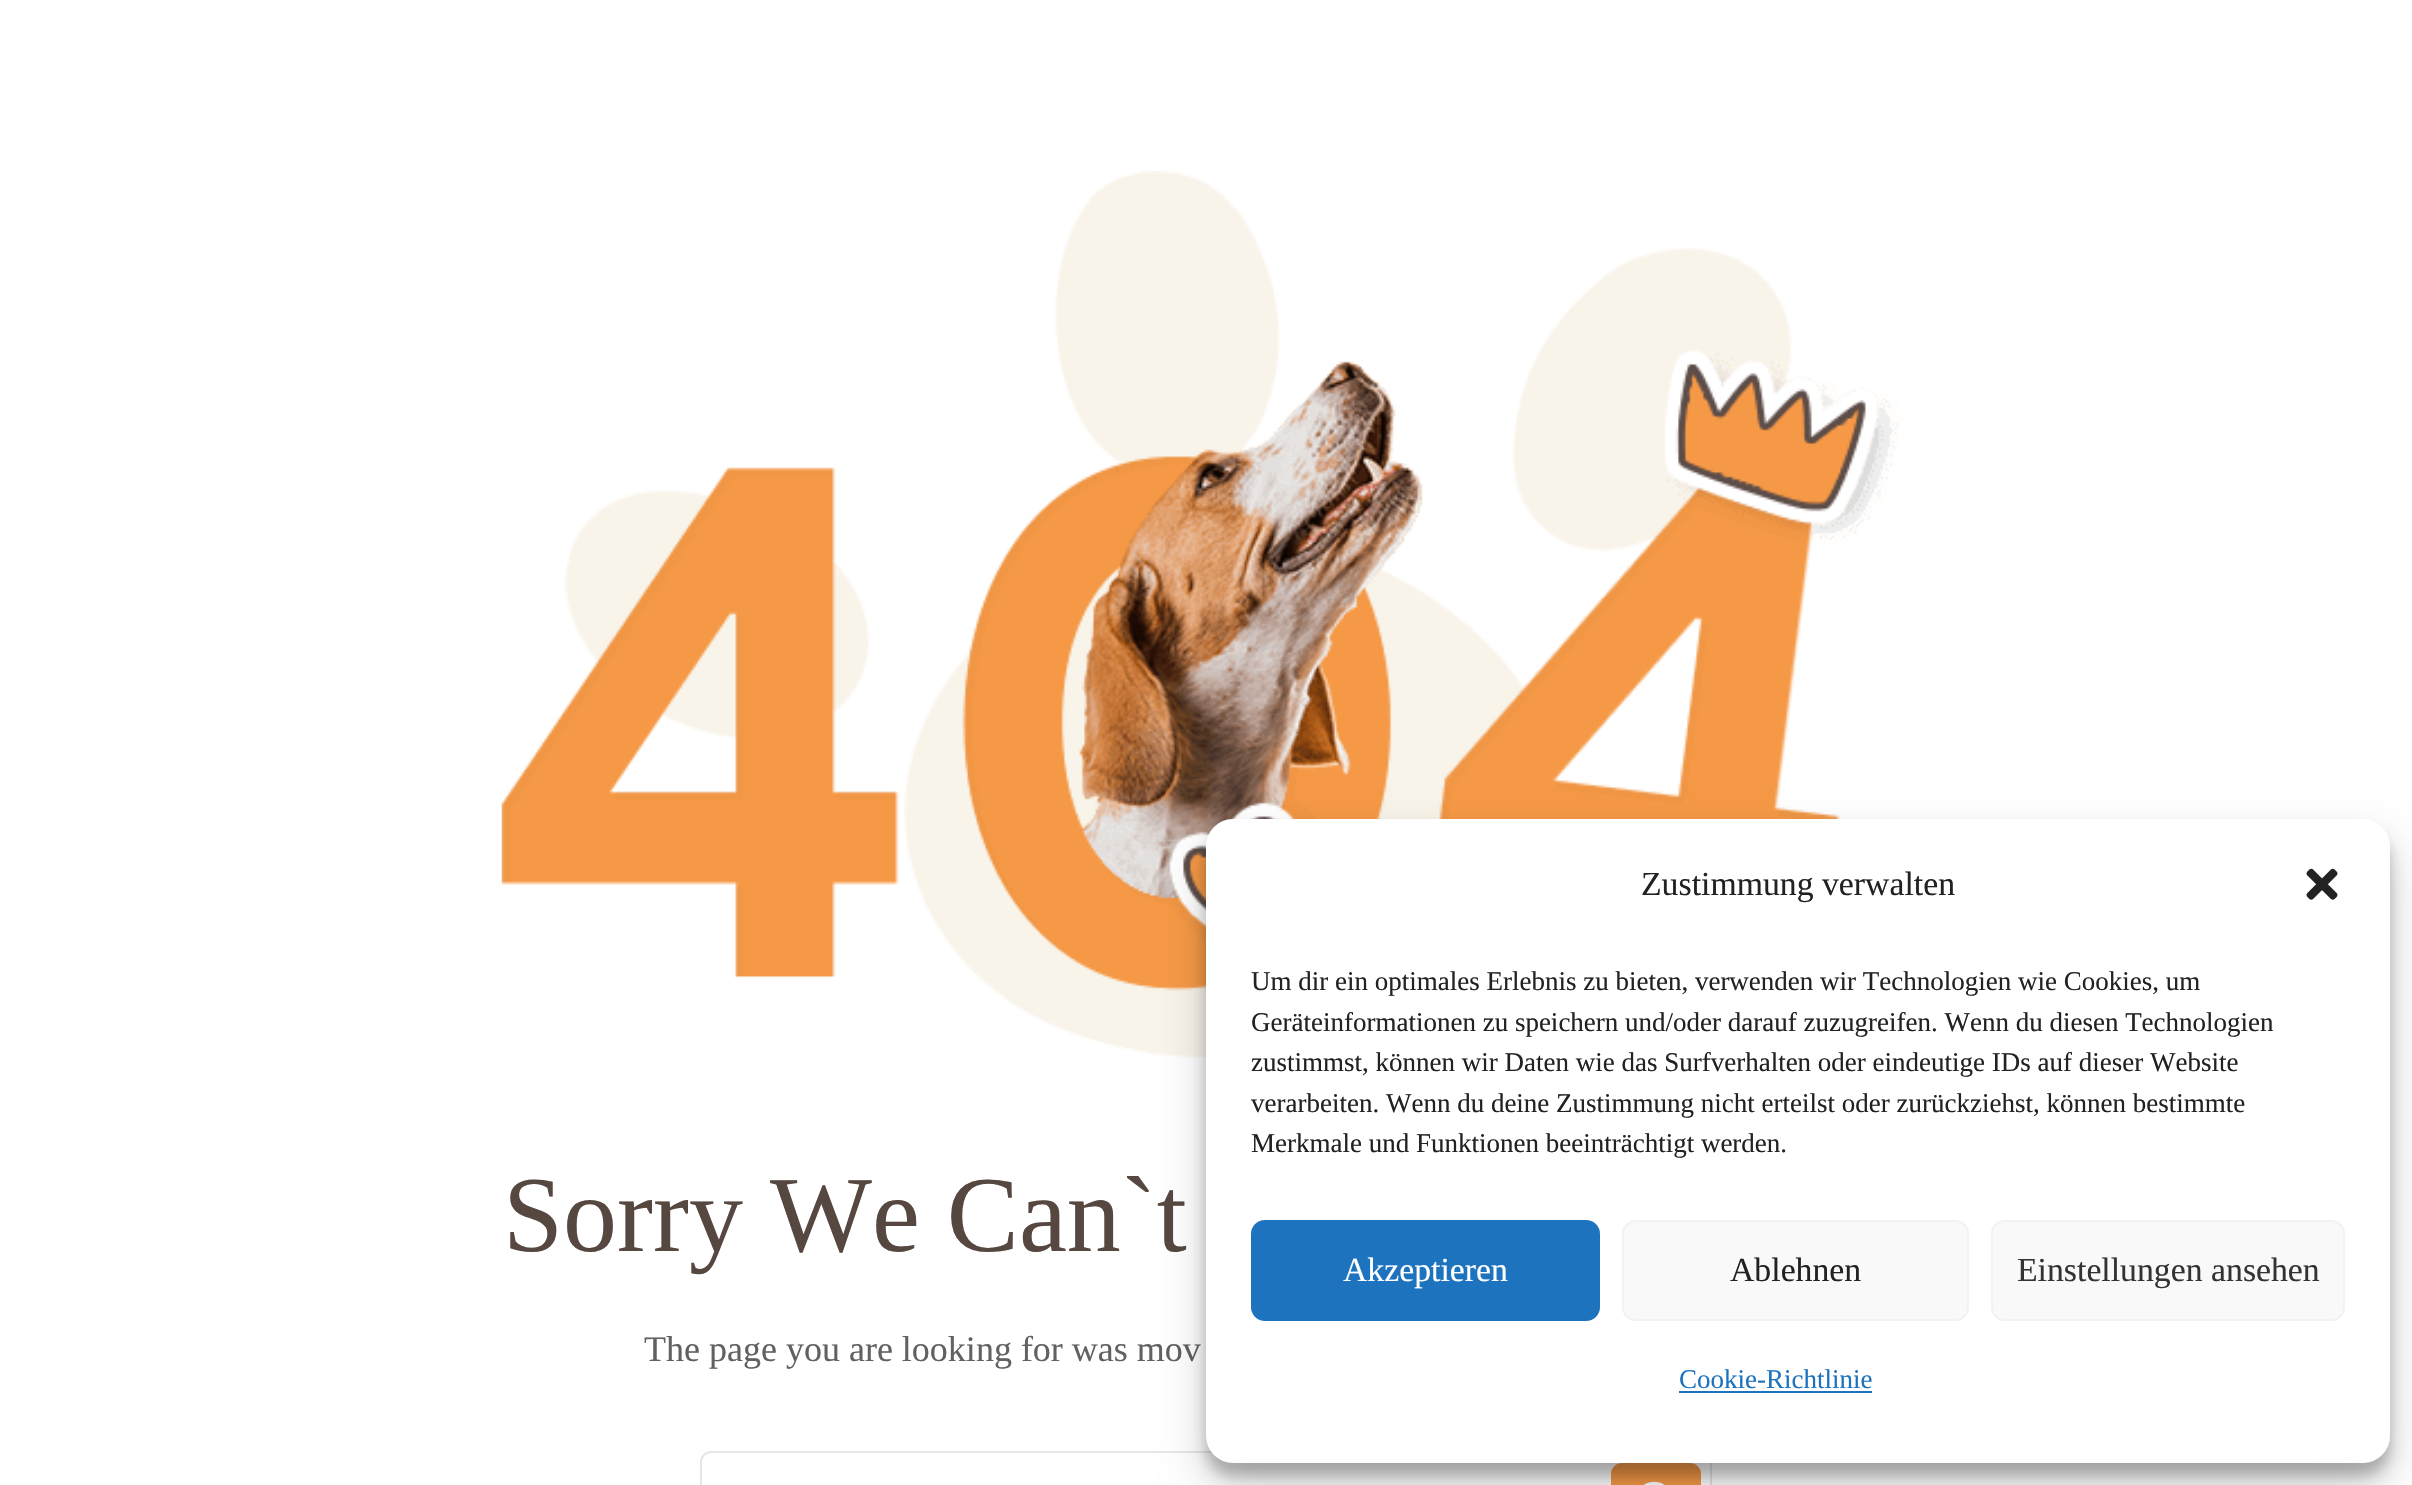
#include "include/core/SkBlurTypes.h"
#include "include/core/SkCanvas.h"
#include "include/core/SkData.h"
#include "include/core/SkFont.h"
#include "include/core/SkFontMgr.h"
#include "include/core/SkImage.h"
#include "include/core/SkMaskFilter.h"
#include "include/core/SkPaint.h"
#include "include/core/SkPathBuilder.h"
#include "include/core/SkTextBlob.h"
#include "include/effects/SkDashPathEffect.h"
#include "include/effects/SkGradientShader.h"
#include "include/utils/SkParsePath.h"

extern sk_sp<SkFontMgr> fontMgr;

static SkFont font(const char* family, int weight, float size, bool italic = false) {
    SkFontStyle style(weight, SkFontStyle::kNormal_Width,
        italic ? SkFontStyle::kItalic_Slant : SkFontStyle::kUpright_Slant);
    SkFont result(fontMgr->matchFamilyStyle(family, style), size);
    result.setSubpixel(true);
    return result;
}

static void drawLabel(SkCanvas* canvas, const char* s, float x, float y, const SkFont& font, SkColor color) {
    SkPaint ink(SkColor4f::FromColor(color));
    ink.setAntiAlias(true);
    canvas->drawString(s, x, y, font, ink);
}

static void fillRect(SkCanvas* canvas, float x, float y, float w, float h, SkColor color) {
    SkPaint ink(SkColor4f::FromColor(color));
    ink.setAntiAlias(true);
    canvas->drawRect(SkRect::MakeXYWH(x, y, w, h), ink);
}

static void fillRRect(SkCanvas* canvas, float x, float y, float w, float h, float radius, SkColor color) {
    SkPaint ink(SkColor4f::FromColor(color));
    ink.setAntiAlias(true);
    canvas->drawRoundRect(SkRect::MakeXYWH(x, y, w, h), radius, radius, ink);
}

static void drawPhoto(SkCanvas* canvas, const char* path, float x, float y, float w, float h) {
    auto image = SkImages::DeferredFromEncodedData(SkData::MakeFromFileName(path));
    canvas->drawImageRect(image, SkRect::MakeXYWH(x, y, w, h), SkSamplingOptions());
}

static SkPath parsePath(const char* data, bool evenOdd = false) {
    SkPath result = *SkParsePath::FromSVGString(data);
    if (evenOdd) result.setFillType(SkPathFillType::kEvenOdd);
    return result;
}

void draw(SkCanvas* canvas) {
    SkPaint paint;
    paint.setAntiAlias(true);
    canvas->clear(0xFFFFFFFF);
    drawPhoto(canvas, "assets/img1.png", 501, 171, 1402, 887);
    SkFont font1 = font("Liberation Serif", 400, 108);
    drawLabel(canvas, "Sorry We Can`t", 503, 1251, font1, 0xFF564741);
    SkFont font2 = font("Liberation Serif", 400, 36);
    drawLabel(canvas, "The page you are looking for was mov", 644, 1361, font2, 0xFF616161);
    paint.setStroke(true);
    paint.setStrokeWidth(2);
    paint.setColor(0xFFE6E6E6);
    canvas->drawRoundRect(SkRect::MakeXYWH(701, 1452, 1010, 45), 10, 10, paint);
    fillRRect(canvas, 1611, 1463, 90, 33, 11, 0xFFF69946);
    paint.setStroke(false);
    paint.setColor(0xFFFFFFFF);
    canvas->drawPath(parsePath("M1640 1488C1659 1469 1688 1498 1669 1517C1650 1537 1620 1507 1640 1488ZM1654 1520C1676 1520 1677 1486 1654 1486C1632 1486 1632 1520 1654 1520ZM1680 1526L1681 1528C1679 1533 1672 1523 1672 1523C1671 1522 1664 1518 1666 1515C1667 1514 1668 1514 1669 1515Z"), paint);
    paint.setColor(0x3B000000);
    paint.setMaskFilter(SkMaskFilter::MakeBlur(kNormal_SkBlurStyle, 7));
    canvas->drawRoundRect(SkRect::MakeXYWH(1206, 833, 1184, 643), 27, 27, paint);
    paint.setMaskFilter(nullptr);
    paint.setColor(0x30000000);
    paint.setMaskFilter(SkMaskFilter::MakeBlur(kNormal_SkBlurStyle, 22.5f));
    canvas->drawRoundRect(SkRect::MakeXYWH(1206, 842, 1184, 643), 27, 27, paint);
    paint.setMaskFilter(nullptr);
    fillRRect(canvas, 1206, 819, 1184, 644, 27, 0xFFFFFFFF);
    SkFont font3 = font("Liberation Serif", 400, 33.75f);
    drawLabel(canvas, "Zustimmung verwalten", 1641, 895, font3, 0xFF222222);
    drawPhoto(canvas, "assets/img2.png", 2306, 868, 32, 32);
    SkFont font4 = font("Liberation Serif", 400, 27);
    drawLabel(canvas, "Um dir ein optimales Erlebnis zu bieten, verwenden wir Technologien wie Cookies, um", 1251, 990, font4, 0xFF222222);
    drawLabel(canvas, "Geräteinformationen zu speichern und/oder darauf zuzugreifen. Wenn du diesen Technologien", 1251, 1031, font4, 0xFF222222);
    drawLabel(canvas, "zustimmst, können wir Daten wie das Surfverhalten oder eindeutige IDs auf dieser Website", 1251, 1071, font4, 0xFF222222);
    drawLabel(canvas, "verarbeiten. Wenn du deine Zustimmung nicht erteilst oder zurückziehst, können bestimmte", 1251, 1112, font4, 0xFF222222);
    drawLabel(canvas, "Merkmale und Funktionen beeinträchtigt werden.", 1251, 1152, font4, 0xFF222222);
    paint.setColor(0xFF1E73BE);
    canvas->drawRoundRect(SkRect::MakeXYWH(1252, 1221, 347, 99), 13, 13, paint);
    paint.setStroke(true);
    canvas->drawRoundRect(SkRect::MakeXYWH(1252, 1221, 347, 99), 13, 13, paint);
    drawLabel(canvas, "Akzeptieren", 1343, 1281, font3, 0xFFFFFFFF);
    paint.setStroke(false);
    paint.setColor(0xFFF9F9F9);
    canvas->drawRoundRect(SkRect::MakeXYWH(1623, 1221, 345, 99), 13, 13, paint);
    paint.setStroke(true);
    paint.setColor(0xFFF2F2F2);
    canvas->drawRoundRect(SkRect::MakeXYWH(1623, 1221, 345, 99), 13, 13, paint);
    drawLabel(canvas, "Ablehnen", 1730, 1281, font3, 0xFF222222);
    paint.setStroke(false);
    paint.setColor(0xFFF9F9F9);
    canvas->drawRoundRect(SkRect::MakeXYWH(1992, 1221, 352, 99), 13, 13, paint);
    paint.setStroke(true);
    paint.setColor(0xFFF2F2F2);
    canvas->drawRoundRect(SkRect::MakeXYWH(1992, 1221, 352, 99), 13, 13, paint);
    drawLabel(canvas, "Einstellungen ansehen", 2017, 1281, font3, 0xFF333333);
    drawLabel(canvas, "Cookie-Richtlinie", 1679, 1388, font4, 0xFF1E73BE);
    fillRect(canvas, 1679, 1391, 193, 2, 0xFF1E73BE);
}
